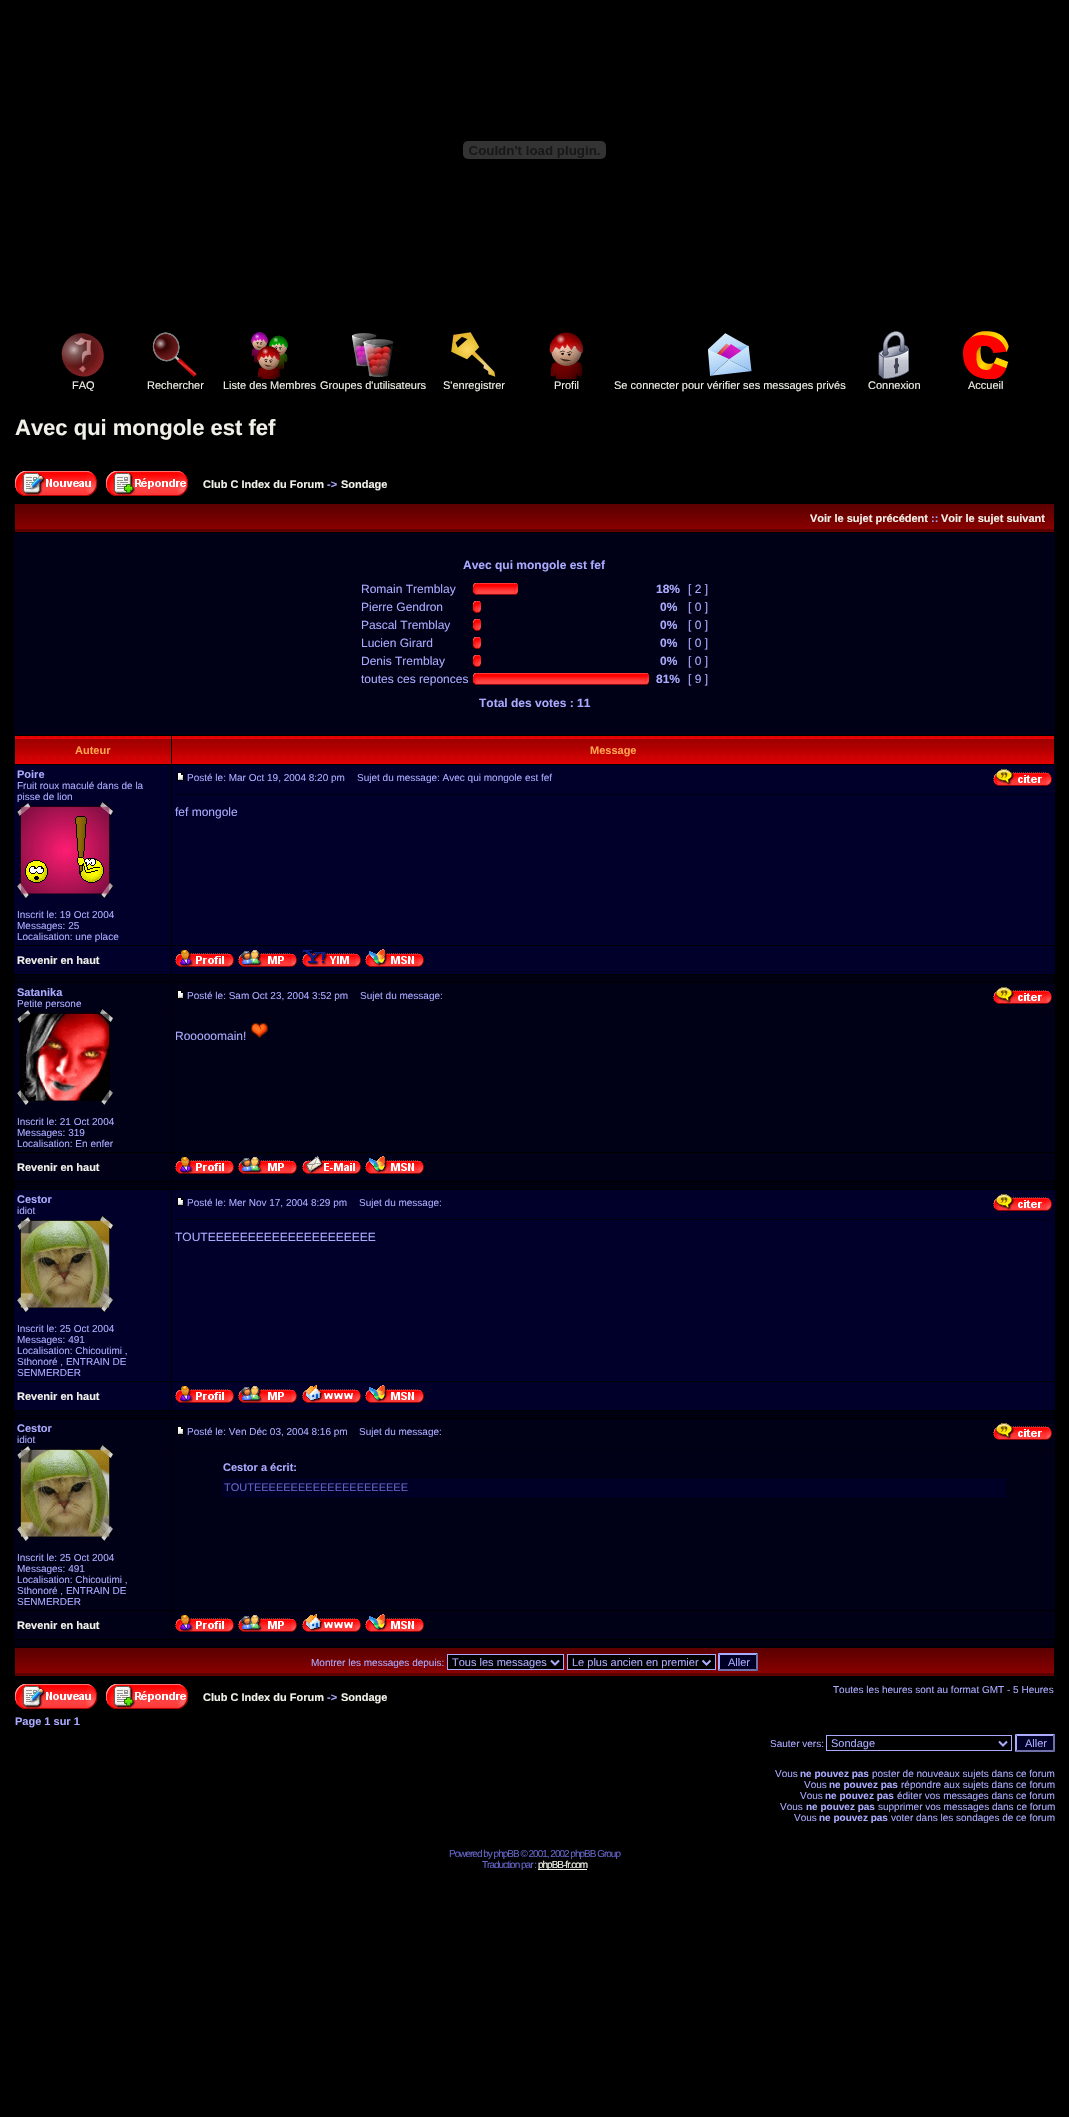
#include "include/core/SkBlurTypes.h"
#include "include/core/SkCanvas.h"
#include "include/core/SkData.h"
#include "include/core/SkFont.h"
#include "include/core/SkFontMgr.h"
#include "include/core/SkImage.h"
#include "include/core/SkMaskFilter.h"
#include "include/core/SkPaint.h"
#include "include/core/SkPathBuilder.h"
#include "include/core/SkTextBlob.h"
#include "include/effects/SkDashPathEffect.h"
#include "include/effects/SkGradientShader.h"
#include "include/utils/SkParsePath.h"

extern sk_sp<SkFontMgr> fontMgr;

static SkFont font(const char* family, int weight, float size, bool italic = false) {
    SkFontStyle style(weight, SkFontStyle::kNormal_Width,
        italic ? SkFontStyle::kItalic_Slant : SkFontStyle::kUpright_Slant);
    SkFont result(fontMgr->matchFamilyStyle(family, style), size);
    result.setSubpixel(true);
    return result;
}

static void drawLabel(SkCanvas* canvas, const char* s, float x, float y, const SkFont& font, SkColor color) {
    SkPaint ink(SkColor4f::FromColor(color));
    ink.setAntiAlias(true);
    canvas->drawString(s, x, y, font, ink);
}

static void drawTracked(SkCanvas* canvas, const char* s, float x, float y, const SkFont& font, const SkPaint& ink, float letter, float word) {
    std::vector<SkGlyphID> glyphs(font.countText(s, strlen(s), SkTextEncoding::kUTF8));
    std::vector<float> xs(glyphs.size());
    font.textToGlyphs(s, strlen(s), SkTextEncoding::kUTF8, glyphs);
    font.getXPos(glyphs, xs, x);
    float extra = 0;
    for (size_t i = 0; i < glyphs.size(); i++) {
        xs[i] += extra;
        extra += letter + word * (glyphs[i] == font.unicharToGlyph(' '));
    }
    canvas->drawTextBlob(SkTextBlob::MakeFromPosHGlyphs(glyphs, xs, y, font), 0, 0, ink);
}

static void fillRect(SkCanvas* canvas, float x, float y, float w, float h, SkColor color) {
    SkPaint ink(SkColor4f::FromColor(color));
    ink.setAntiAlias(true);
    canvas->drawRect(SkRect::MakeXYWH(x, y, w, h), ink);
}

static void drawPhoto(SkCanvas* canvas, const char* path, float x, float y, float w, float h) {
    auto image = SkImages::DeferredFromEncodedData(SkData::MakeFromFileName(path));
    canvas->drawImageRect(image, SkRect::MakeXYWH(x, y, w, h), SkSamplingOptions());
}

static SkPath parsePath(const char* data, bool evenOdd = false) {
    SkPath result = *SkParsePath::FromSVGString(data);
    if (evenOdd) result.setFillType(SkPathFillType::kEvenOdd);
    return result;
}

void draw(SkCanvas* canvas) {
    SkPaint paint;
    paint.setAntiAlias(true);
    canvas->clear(0xFF000000);
    drawPhoto(canvas, "assets/img1.png", 463, 141, 143, 18);
    drawPhoto(canvas, "assets/img2.png", 61, 333, 43, 44);
    SkFont font1 = font("Liberation Sans", 400, 11);
    drawLabel(canvas, "FAQ", 72, 389, font1, 0xFFF1F1E9);
    drawPhoto(canvas, "assets/img3.png", 152, 332, 45, 45);
    drawLabel(canvas, "Rechercher", 147, 389, font1, 0xFFF1F1E9);
    drawPhoto(canvas, "assets/img4.png", 251, 332, 37, 47);
    drawLabel(canvas, "Liste des Membres", 223, 389, font1, 0xFFF1F1E9);
    drawPhoto(canvas, "assets/img5.png", 352, 333, 42, 44);
    drawLabel(canvas, "Groupes d'utilisateurs", 320, 389, font1, 0xFFF1F1E9);
    drawPhoto(canvas, "assets/img6.png", 451, 332, 45, 45);
    drawLabel(canvas, "S'enregistrer", 443, 389, font1, 0xFFF1F1E9);
    drawPhoto(canvas, "assets/img7.png", 549, 332, 34, 47);
    drawLabel(canvas, "Profil", 554, 389, font1, 0xFFF1F1E9);
    drawPhoto(canvas, "assets/img8.png", 708, 333, 44, 44);
    drawLabel(canvas, "Se connecter pour vérifier ses messages privés", 614, 389, font1, 0xFFF1F1E9);
    drawPhoto(canvas, "assets/img9.png", 878, 331, 31, 48);
    drawLabel(canvas, "Connexion", 868, 389, font1, 0xFFF1F1E9);
    drawPhoto(canvas, "assets/img10.png", 963, 331, 46, 48);
    drawLabel(canvas, "Accueil", 968, 389, font1, 0xFFF1F1E9);
    SkFont font2 = font("Liberation Sans", 700, 22);
    drawLabel(canvas, "Avec qui mongole est fef", 15, 435, font2, 0xFFF1F1E9);
    drawPhoto(canvas, "assets/img11.png", 15, 471, 82, 25);
    drawPhoto(canvas, "assets/img12.png", 106, 471, 82, 25);
    SkFont font3 = font("Liberation Sans", 700, 11);
    drawLabel(canvas, "Club C Index du Forum", 203, 488, font3, 0xFFF1F1E9);
    drawLabel(canvas, "->", 327, 488, font3, 0xFFAAAAFF);
    drawLabel(canvas, "Sondage", 341, 488, font3, 0xFFF1F1E9);
    drawPhoto(canvas, "assets/img13.png", 15, 504, 1039, 28);
    drawLabel(canvas, "Voir le sujet précédent", 810, 522, font3, 0xFFF1F1E9);
    drawLabel(canvas, "::", 931, 522, font3, 0xFFAAAAFF);
    drawLabel(canvas, "Voir le sujet suivant", 941, 522, font3, 0xFFF1F1E9);
    fillRect(canvas, 14, 533, 1041, 202, 0xFF000017);
    SkFont font4 = font("Liberation Sans", 700, 12);
    drawLabel(canvas, "Avec qui mongole est fef", 463, 569, font4, 0xFFAAAAFF);
    SkFont font5 = font("Liberation Sans", 400, 12);
    drawLabel(canvas, "Romain Tremblay", 361, 593, font5, 0xFFAAAAFF);
    drawPhoto(canvas, "assets/img14.png", 473, 583, 4, 12);
    drawPhoto(canvas, "assets/img15.png", 477, 583, 37, 12);
    drawPhoto(canvas, "assets/img16.png", 514, 583, 4, 12);
    drawLabel(canvas, "18%", 656, 593, font4, 0xFFAAAAFF);
    drawLabel(canvas, "[ 2 ]", 688, 593, font5, 0xFFAAAAFF);
    drawLabel(canvas, "Pierre Gendron", 361, 611, font5, 0xFFAAAAFF);
    drawPhoto(canvas, "assets/img14.png", 473, 601, 4, 12);
    drawPhoto(canvas, "assets/img16.png", 477, 601, 4, 12);
    drawLabel(canvas, "0%", 660, 611, font4, 0xFFAAAAFF);
    drawLabel(canvas, "[ 0 ]", 688, 611, font5, 0xFFAAAAFF);
    drawLabel(canvas, "Pascal Tremblay", 361, 629, font5, 0xFFAAAAFF);
    drawPhoto(canvas, "assets/img14.png", 473, 619, 4, 12);
    drawPhoto(canvas, "assets/img16.png", 477, 619, 4, 12);
    drawLabel(canvas, "0%", 660, 629, font4, 0xFFAAAAFF);
    drawLabel(canvas, "[ 0 ]", 688, 629, font5, 0xFFAAAAFF);
    drawLabel(canvas, "Lucien Girard", 361, 647, font5, 0xFFAAAAFF);
    drawPhoto(canvas, "assets/img14.png", 473, 637, 4, 12);
    drawPhoto(canvas, "assets/img16.png", 477, 637, 4, 12);
    drawLabel(canvas, "0%", 660, 647, font4, 0xFFAAAAFF);
    drawLabel(canvas, "[ 0 ]", 688, 647, font5, 0xFFAAAAFF);
    drawLabel(canvas, "Denis Tremblay", 361, 665, font5, 0xFFAAAAFF);
    drawPhoto(canvas, "assets/img14.png", 473, 655, 4, 12);
    drawPhoto(canvas, "assets/img16.png", 477, 655, 4, 12);
    drawLabel(canvas, "0%", 660, 665, font4, 0xFFAAAAFF);
    drawLabel(canvas, "[ 0 ]", 688, 665, font5, 0xFFAAAAFF);
    drawLabel(canvas, "toutes ces reponces", 361, 683, font5, 0xFFAAAAFF);
    drawPhoto(canvas, "assets/img14.png", 473, 673, 4, 12);
    drawPhoto(canvas, "assets/img17.png", 477, 673, 168, 12);
    drawPhoto(canvas, "assets/img16.png", 645, 673, 4, 12);
    drawLabel(canvas, "81%", 656, 683, font4, 0xFFAAAAFF);
    drawLabel(canvas, "[ 9 ]", 688, 683, font5, 0xFFAAAAFF);
    drawLabel(canvas, "Total des votes : 11", 479, 707, font4, 0xFFAAAAFF);
    drawPhoto(canvas, "assets/img18.png", 15, 736, 156, 28);
    drawLabel(canvas, "Auteur", 75, 754, font3, 0xFFFFA34F);
    drawPhoto(canvas, "assets/img19.png", 172, 736, 882, 28);
    drawLabel(canvas, "Message", 590, 754, font3, 0xFFFFA34F);
    fillRect(canvas, 14, 765, 157, 180, 0xFF00002A);
    drawLabel(canvas, "Poire", 17, 778, font3, 0xFFAAAAFF);
    SkFont font6 = font("Liberation Sans", 400, 10);
    drawLabel(canvas, "Fruit roux maculé dans de la", 17, 789, font6, 0xFFAAAAFF);
    drawLabel(canvas, "pisse de lion", 17, 800, font6, 0xFFAAAAFF);
    drawPhoto(canvas, "assets/img20.png", 17, 802, 96, 96);
    drawLabel(canvas, "Inscrit le: 19 Oct 2004", 17, 918, font6, 0xFFAAAAFF);
    drawLabel(canvas, "Messages: 25", 17, 929, font6, 0xFFAAAAFF);
    drawLabel(canvas, "Localisation: une place", 17, 940, font6, 0xFFAAAAFF);
    fillRect(canvas, 172, 765, 883, 180, 0xFF00002A);
    drawPhoto(canvas, "assets/img21.png", 177, 772, 7, 9);
    drawLabel(canvas, "Posté le: Mar Oct 19, 2004 8:20 pm", 187, 781, font6, 0xFFAAAAFF);
    drawLabel(canvas, "Sujet du message: Avec qui mongole est fef", 357, 781, font6, 0xFFAAAAFF);
    drawPhoto(canvas, "assets/img22.png", 993, 769, 59, 17);
    fillRect(canvas, 175, 794, 877, 1, 0xFF000011);
    drawLabel(canvas, "fef mongole", 175, 816, font5, 0xFFAAAAFF);
    fillRect(canvas, 14, 946, 157, 28, 0xFF00002A);
    drawLabel(canvas, "Revenir en haut", 17, 964, font3, 0xFFF1F1E9);
    fillRect(canvas, 172, 946, 883, 28, 0xFF00002A);
    drawPhoto(canvas, "assets/img23.png", 175, 950, 59, 17);
    drawPhoto(canvas, "assets/img24.png", 238, 950, 59, 17);
    drawPhoto(canvas, "assets/img25.png", 302, 950, 59, 17);
    drawPhoto(canvas, "assets/img26.png", 365, 949, 59, 18);
    fillRect(canvas, 15, 975, 1039, 7, 0xFF000011);
    fillRect(canvas, 14, 983, 157, 169, 0xFF000017);
    drawLabel(canvas, "Satanika", 17, 996, font3, 0xFFAAAAFF);
    drawLabel(canvas, "Petite persone", 17, 1007, font6, 0xFFAAAAFF);
    drawPhoto(canvas, "assets/img27.png", 17, 1009, 96, 96);
    drawLabel(canvas, "Inscrit le: 21 Oct 2004", 17, 1125, font6, 0xFFAAAAFF);
    drawLabel(canvas, "Messages: 319", 17, 1136, font6, 0xFFAAAAFF);
    drawLabel(canvas, "Localisation: En enfer", 17, 1147, font6, 0xFFAAAAFF);
    fillRect(canvas, 172, 983, 883, 169, 0xFF000017);
    drawPhoto(canvas, "assets/img28.png", 177, 990, 7, 9);
    drawLabel(canvas, "Posté le: Sam Oct 23, 2004 3:52 pm", 187, 999, font6, 0xFFAAAAFF);
    drawLabel(canvas, "Sujet du message:", 360, 999, font6, 0xFFAAAAFF);
    drawPhoto(canvas, "assets/img29.png", 993, 987, 59, 17);
    fillRect(canvas, 175, 1012, 877, 1, 0xFF000011);
    drawLabel(canvas, "Rooooomain!", 175, 1040, font5, 0xFFAAAAFF);
    drawPhoto(canvas, "assets/img30.png", 251, 1023, 17, 15);
    fillRect(canvas, 14, 1153, 157, 28, 0xFF000017);
    drawLabel(canvas, "Revenir en haut", 17, 1171, font3, 0xFFF1F1E9);
    fillRect(canvas, 172, 1153, 883, 28, 0xFF000017);
    drawPhoto(canvas, "assets/img31.png", 175, 1157, 59, 17);
    drawPhoto(canvas, "assets/img32.png", 238, 1157, 59, 17);
    drawPhoto(canvas, "assets/img33.png", 302, 1156, 59, 18);
    drawPhoto(canvas, "assets/img34.png", 365, 1156, 59, 18);
    fillRect(canvas, 15, 1182, 1039, 7, 0xFF000011);
    fillRect(canvas, 14, 1190, 157, 191, 0xFF00002A);
    drawLabel(canvas, "Cestor", 17, 1203, font3, 0xFFAAAAFF);
    drawLabel(canvas, "idiot", 17, 1214, font6, 0xFFAAAAFF);
    drawPhoto(canvas, "assets/img35.png", 17, 1216, 96, 96);
    drawLabel(canvas, "Inscrit le: 25 Oct 2004", 17, 1332, font6, 0xFFAAAAFF);
    drawLabel(canvas, "Messages: 491", 17, 1343, font6, 0xFFAAAAFF);
    drawLabel(canvas, "Localisation: Chicoutimi ,", 17, 1354, font6, 0xFFAAAAFF);
    drawLabel(canvas, "Sthonoré , ENTRAIN DE", 17, 1365, font6, 0xFFAAAAFF);
    drawLabel(canvas, "SENMERDER", 17, 1376, font6, 0xFFAAAAFF);
    fillRect(canvas, 172, 1190, 883, 191, 0xFF00002A);
    drawPhoto(canvas, "assets/img21.png", 177, 1197, 7, 9);
    drawLabel(canvas, "Posté le: Mer Nov 17, 2004 8:29 pm", 187, 1206, font6, 0xFFAAAAFF);
    drawLabel(canvas, "Sujet du message:", 359, 1206, font6, 0xFFAAAAFF);
    drawPhoto(canvas, "assets/img22.png", 993, 1194, 59, 17);
    fillRect(canvas, 175, 1219, 877, 1, 0xFF000011);
    drawLabel(canvas, "TOUTEEEEEEEEEEEEEEEEEEEEE", 175, 1241, font5, 0xFFAAAAFF);
    fillRect(canvas, 14, 1382, 157, 28, 0xFF00002A);
    drawLabel(canvas, "Revenir en haut", 17, 1400, font3, 0xFFF1F1E9);
    fillRect(canvas, 172, 1382, 883, 28, 0xFF00002A);
    drawPhoto(canvas, "assets/img23.png", 175, 1386, 59, 17);
    drawPhoto(canvas, "assets/img24.png", 238, 1386, 59, 17);
    drawPhoto(canvas, "assets/img36.png", 302, 1385, 59, 18);
    drawPhoto(canvas, "assets/img26.png", 365, 1385, 59, 18);
    fillRect(canvas, 15, 1411, 1039, 7, 0xFF000011);
    fillRect(canvas, 14, 1419, 157, 191, 0xFF000017);
    drawLabel(canvas, "Cestor", 17, 1432, font3, 0xFFAAAAFF);
    drawLabel(canvas, "idiot", 17, 1443, font6, 0xFFAAAAFF);
    drawPhoto(canvas, "assets/img37.png", 17, 1445, 96, 96);
    drawLabel(canvas, "Inscrit le: 25 Oct 2004", 17, 1561, font6, 0xFFAAAAFF);
    drawLabel(canvas, "Messages: 491", 17, 1572, font6, 0xFFAAAAFF);
    drawLabel(canvas, "Localisation: Chicoutimi ,", 17, 1583, font6, 0xFFAAAAFF);
    drawLabel(canvas, "Sthonoré , ENTRAIN DE", 17, 1594, font6, 0xFFAAAAFF);
    drawLabel(canvas, "SENMERDER", 17, 1605, font6, 0xFFAAAAFF);
    fillRect(canvas, 172, 1419, 883, 191, 0xFF000017);
    drawPhoto(canvas, "assets/img28.png", 177, 1426, 7, 9);
    drawLabel(canvas, "Posté le: Ven Déc 03, 2004 8:16 pm", 187, 1435, font6, 0xFFAAAAFF);
    drawLabel(canvas, "Sujet du message:", 359, 1435, font6, 0xFFAAAAFF);
    drawPhoto(canvas, "assets/img29.png", 993, 1423, 59, 17);
    fillRect(canvas, 175, 1448, 877, 1, 0xFF000011);
    drawLabel(canvas, "Cestor a écrit:", 223, 1471, font3, 0xFFAAAAFF);
    paint.setColor(0xFF000027);
    canvas->drawRect(SkRect::MakeXYWH(220.5f, 1477.5f, 786, 21), paint);
    paint.setStroke(true);
    paint.setStrokeWidth(1);
    paint.setColor(0xFF000011);
    canvas->drawRect(SkRect::MakeXYWH(220.5f, 1477.5f, 786, 21), paint);
    drawLabel(canvas, "TOUTEEEEEEEEEEEEEEEEEEEEE", 224, 1491, font1, 0xFF6464C8);
    fillRect(canvas, 14, 1611, 157, 28, 0xFF000017);
    drawLabel(canvas, "Revenir en haut", 17, 1629, font3, 0xFFF1F1E9);
    fillRect(canvas, 172, 1611, 883, 28, 0xFF000017);
    drawPhoto(canvas, "assets/img31.png", 175, 1615, 59, 17);
    drawPhoto(canvas, "assets/img32.png", 238, 1615, 59, 17);
    drawPhoto(canvas, "assets/img38.png", 302, 1614, 59, 18);
    drawPhoto(canvas, "assets/img34.png", 365, 1614, 59, 18);
    fillRect(canvas, 15, 1640, 1039, 7, 0xFF000011);
    drawPhoto(canvas, "assets/img13.png", 15, 1648, 1039, 28);
    drawLabel(canvas, "Montrer les messages depuis:", 311, 1666, font6, 0xFFAAAAFF);
    paint.setStroke(false);
    paint.setColor(0xFF000000);
    canvas->drawRect(SkRect::MakeXYWH(447.5f, 1654.5f, 116, 15), paint);
    paint.setStroke(true);
    paint.setColor(0xFFAAAAFF);
    canvas->drawRect(SkRect::MakeXYWH(447.5f, 1654.5f, 116, 15), paint);
    paint.setStrokeWidth(2);
    canvas->drawPath(parsePath("M551 1660.5L555 1664.5L559 1660.5"), paint);
    drawLabel(canvas, "Tous les messages", 452, 1666, font1, 0xFFAAAAFF);
    paint.setStroke(false);
    paint.setColor(0xFF000000);
    canvas->drawRect(SkRect::MakeXYWH(567.5f, 1654.5f, 148, 15), paint);
    paint.setStroke(true);
    paint.setStrokeWidth(1);
    paint.setColor(0xFFAAAAFF);
    canvas->drawRect(SkRect::MakeXYWH(567.5f, 1654.5f, 148, 15), paint);
    paint.setStrokeWidth(2);
    canvas->drawPath(parsePath("M702.5 1660.5L706.5 1664.5L710.5 1660.5"), paint);
    drawLabel(canvas, "Le plus ancien en premier", 572, 1666, font1, 0xFFAAAAFF);
    fillRect(canvas, 718, 1653, 40, 18, 0xFF000027);
    paint.setStroke(false);
    canvas->drawPath(parsePath("M718 1653H758L756 1655H720Z"), paint);
    paint.setColor(0xFF7171AA);
    canvas->drawPath(parsePath("M758 1653V1671L756 1669V1655Z"), paint);
    canvas->drawPath(parsePath("M758 1671H718L720 1669H756Z"), paint);
    paint.setColor(0xFFAAAAFF);
    canvas->drawPath(parsePath("M718 1671V1653L720 1655V1669Z"), paint);
    drawLabel(canvas, "Aller", 728, 1666, font1, 0xFFAAAAFF);
    drawPhoto(canvas, "assets/img11.png", 15, 1684, 82, 25);
    drawPhoto(canvas, "assets/img12.png", 106, 1684, 82, 25);
    drawLabel(canvas, "Toutes les heures sont au format GMT - 5 Heures", 833, 1693, font6, 0xFFAAAAFF);
    drawLabel(canvas, "Club C Index du Forum", 203, 1701, font3, 0xFFF1F1E9);
    drawLabel(canvas, "->", 327, 1701, font3, 0xFFAAAAFF);
    drawLabel(canvas, "Sondage", 341, 1701, font3, 0xFFF1F1E9);
    drawLabel(canvas, "Page 1 sur 1", 15, 1725, font3, 0xFFAAAAFF);
    drawLabel(canvas, "Sauter vers:", 770, 1747, font6, 0xFFAAAAFF);
    paint.setStroke(true);
    paint.setStrokeWidth(1);
    canvas->drawRect(SkRect::MakeXYWH(826.5f, 1735.5f, 185, 15), paint);
    paint.setStrokeWidth(2);
    canvas->drawPath(parsePath("M999 1741.5L1003 1745.5L1007 1741.5"), paint);
    drawLabel(canvas, "Sondage", 831, 1747, font1, 0xFFAAAAFF);
    fillRect(canvas, 1015, 1734, 40, 18, 0xFF000027);
    paint.setStroke(false);
    canvas->drawPath(parsePath("M1015 1734H1055L1053 1736H1017Z"), paint);
    paint.setColor(0xFF7171AA);
    canvas->drawPath(parsePath("M1055 1734V1752L1053 1750V1736Z"), paint);
    canvas->drawPath(parsePath("M1055 1752H1015L1017 1750H1053Z"), paint);
    paint.setColor(0xFFAAAAFF);
    canvas->drawPath(parsePath("M1015 1752V1734L1017 1736V1750Z"), paint);
    drawLabel(canvas, "Aller", 1025, 1747, font1, 0xFFAAAAFF);
    drawLabel(canvas, "Vous", 775, 1777, font6, 0xFFAAAAFF);
    SkFont font7 = font("Liberation Sans", 700, 10);
    drawLabel(canvas, "ne pouvez pas", 800, 1777, font7, 0xFFAAAAFF);
    drawLabel(canvas, "poster de nouveaux sujets dans ce forum", 872, 1777, font6, 0xFFAAAAFF);
    drawLabel(canvas, "Vous", 804, 1788, font6, 0xFFAAAAFF);
    drawLabel(canvas, "ne pouvez pas", 829, 1788, font7, 0xFFAAAAFF);
    drawLabel(canvas, "répondre aux sujets dans ce forum", 901, 1788, font6, 0xFFAAAAFF);
    drawLabel(canvas, "Vous", 800, 1799, font6, 0xFFAAAAFF);
    drawLabel(canvas, "ne pouvez pas", 825, 1799, font7, 0xFFAAAAFF);
    drawLabel(canvas, "éditer vos messages dans ce forum", 897, 1799, font6, 0xFFAAAAFF);
    drawLabel(canvas, "Vous", 780, 1810, font6, 0xFFAAAAFF);
    drawLabel(canvas, "ne pouvez pas", 806, 1810, font7, 0xFFAAAAFF);
    drawLabel(canvas, "supprimer vos messages dans ce forum", 878, 1810, font6, 0xFFAAAAFF);
    drawLabel(canvas, "Vous", 794, 1821, font6, 0xFFAAAAFF);
    drawLabel(canvas, "ne pouvez pas", 819, 1821, font7, 0xFFAAAAFF);
    drawLabel(canvas, "voter dans les sondages de ce forum", 891, 1821, font6, 0xFFAAAAFF);
    paint.setColor(0xFF6464C8);
    drawTracked(canvas, "Powered by phpBB © 2001, 2002 phpBB Group", 449, 1857, font6, paint, -1, 0);
    drawTracked(canvas, "Traduction par :", 482, 1868, font6, paint, -1, 0);
    fillRect(canvas, 538, 1869, 49, 1, 0xFFF1F1E9);
    paint.setColor(0xFFF1F1E9);
    drawTracked(canvas, "phpBB-fr.com", 538, 1868, font6, paint, -1, 0);
}
